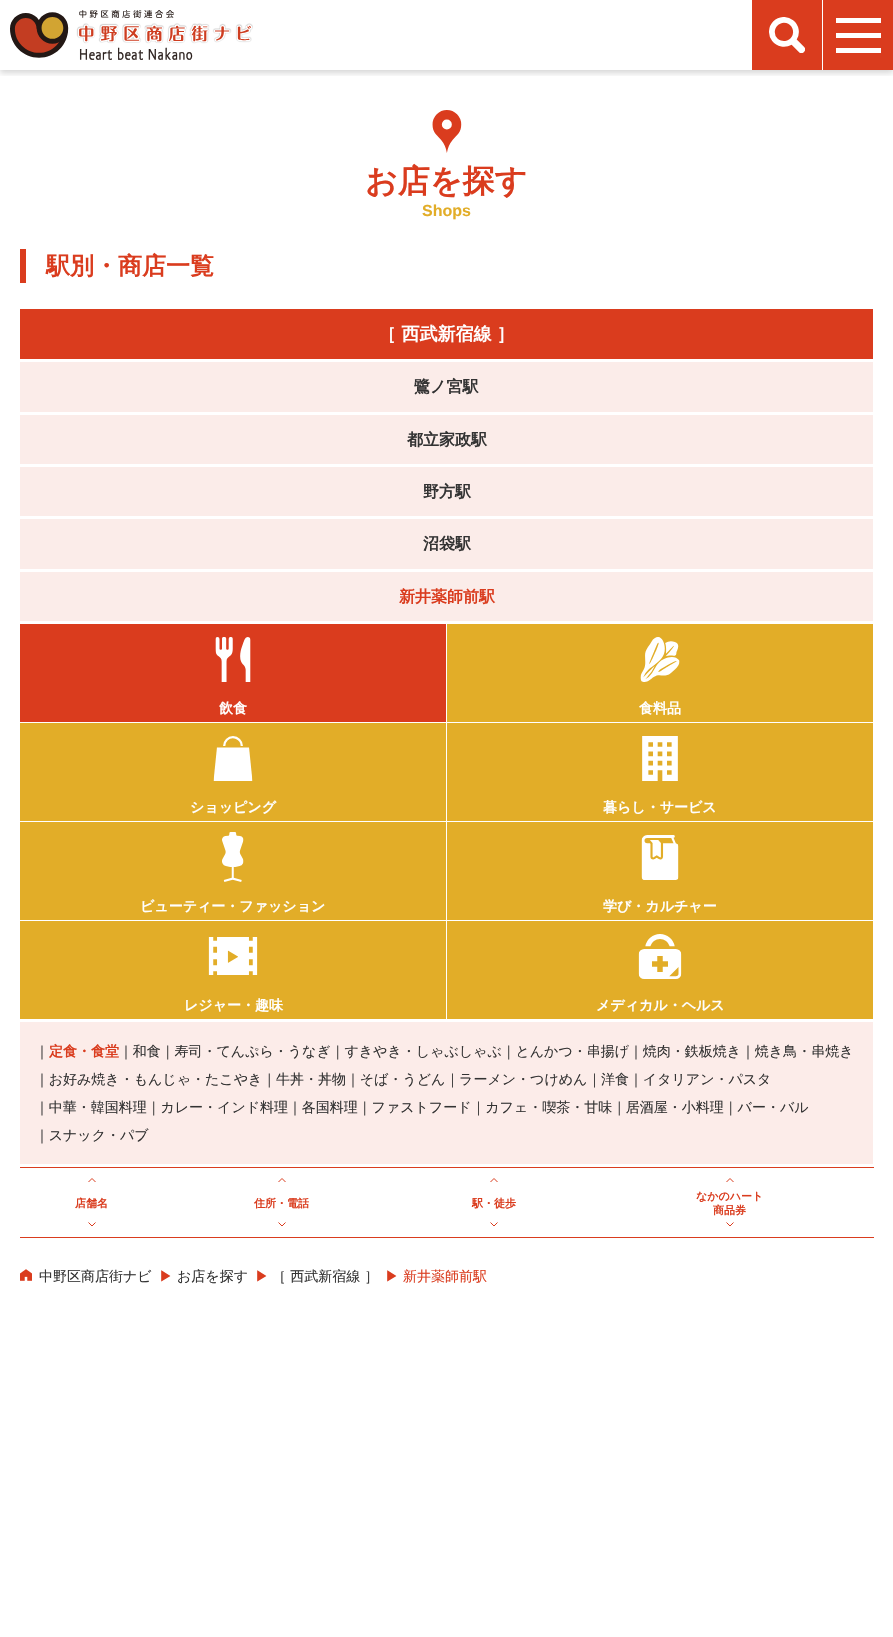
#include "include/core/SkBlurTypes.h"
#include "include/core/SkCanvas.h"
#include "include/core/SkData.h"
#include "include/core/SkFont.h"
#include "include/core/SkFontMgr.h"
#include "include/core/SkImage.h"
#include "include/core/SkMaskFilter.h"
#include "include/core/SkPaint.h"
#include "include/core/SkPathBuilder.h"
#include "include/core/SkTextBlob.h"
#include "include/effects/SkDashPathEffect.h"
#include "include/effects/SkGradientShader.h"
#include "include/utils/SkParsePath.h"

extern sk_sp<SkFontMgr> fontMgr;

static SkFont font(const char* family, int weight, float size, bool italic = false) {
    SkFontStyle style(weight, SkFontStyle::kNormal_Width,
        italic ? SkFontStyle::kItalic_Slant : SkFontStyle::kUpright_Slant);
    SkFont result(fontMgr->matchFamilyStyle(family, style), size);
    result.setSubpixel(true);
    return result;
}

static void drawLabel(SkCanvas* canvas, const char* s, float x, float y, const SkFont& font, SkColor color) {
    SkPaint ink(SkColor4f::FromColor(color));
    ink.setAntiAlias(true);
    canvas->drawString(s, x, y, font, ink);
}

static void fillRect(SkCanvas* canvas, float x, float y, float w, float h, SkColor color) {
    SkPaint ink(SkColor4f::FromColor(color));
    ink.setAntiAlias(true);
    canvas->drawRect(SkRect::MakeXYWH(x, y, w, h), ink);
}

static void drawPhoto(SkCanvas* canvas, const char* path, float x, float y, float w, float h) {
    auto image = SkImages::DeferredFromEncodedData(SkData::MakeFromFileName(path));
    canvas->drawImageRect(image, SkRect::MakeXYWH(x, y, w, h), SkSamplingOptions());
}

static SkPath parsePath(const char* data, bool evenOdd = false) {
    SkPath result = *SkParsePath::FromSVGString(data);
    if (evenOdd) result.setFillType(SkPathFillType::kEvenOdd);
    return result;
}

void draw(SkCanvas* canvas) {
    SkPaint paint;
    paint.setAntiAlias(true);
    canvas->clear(0xFFFFFFFF);
    canvas->save();
    canvas->clipRect(SkRect::MakeXYWH(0, 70, 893, 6));
    paint.setColor(0x29000000);
    paint.setMaskFilter(SkMaskFilter::MakeBlur(kNormal_SkBlurStyle, 3));
    canvas->drawRect(SkRect::MakeXYWH(0, 3, 893, 70), paint);
    paint.setMaskFilter(nullptr);
    canvas->restore();
    drawPhoto(canvas, "assets/img1.png", 10, 10, 243, 50);
    fillRect(canvas, 752, 0, 70, 70, 0xFFDA3C1E);
    drawPhoto(canvas, "assets/img2.png", 769, 17, 36, 36);
    fillRect(canvas, 823, 0, 70, 70, 0xFFDA3C1E);
    fillRect(canvas, 836, 18, 45, 5, 0xFFFFFFFF);
    fillRect(canvas, 836, 33, 45, 5, 0xFFFFFFFF);
    fillRect(canvas, 836, 48, 45, 5, 0xFFFFFFFF);
    drawPhoto(canvas, "assets/img3.png", 432, 110, 30, 43);
    SkFont font1 = font("WenQuanYi Zen Hei", 700, 32);
    drawLabel(canvas, "お店を探す", 365, 192, font1, 0xFFDA3C1E);
    SkFont font2 = font("Liberation Sans", 700, 16);
    drawLabel(canvas, "Shops", 422, 216, font2, 0xFFE2AD28);
    fillRect(canvas, 20, 249, 6, 34, 0xFFDA3C1E);
    SkFont font3 = font("WenQuanYi Zen Hei", 700, 24);
    drawLabel(canvas, "駅別・商店一覧", 46, 274, font3, 0xFFDA3C1E);
    fillRect(canvas, 20, 309, 853, 50, 0xFFDA3C1E);
    SkFont font4 = font("WenQuanYi Zen Hei", 700, 18);
    drawLabel(canvas, "［ 西武新宿線 ］", 378, 340, font4, 0xFFFFFFFF);
    fillRect(canvas, 20, 362, 853, 50, 0xFFFBECE9);
    SkFont font5 = font("WenQuanYi Zen Hei", 700, 16);
    drawLabel(canvas, "鷺ノ宮駅", 414, 392, font5, 0xFF333333);
    fillRect(canvas, 20, 415, 853, 49, 0xFFFBECE9);
    drawLabel(canvas, "都立家政駅", 407, 445, font5, 0xFF333333);
    fillRect(canvas, 20, 467, 853, 49, 0xFFFBECE9);
    drawLabel(canvas, "野方駅", 423, 497, font5, 0xFF333333);
    fillRect(canvas, 20, 519, 853, 50, 0xFFFBECE9);
    drawLabel(canvas, "沼袋駅", 423, 549, font5, 0xFF333333);
    fillRect(canvas, 20, 572, 853, 49, 0xFFFBECE9);
    drawLabel(canvas, "新井薬師前駅", 399, 602, font5, 0xFFDA3C1E);
    fillRect(canvas, 20, 624, 426, 98, 0xFFDA3C1E);
    drawPhoto(canvas, "assets/img4.png", 215, 637, 36, 45);
    SkFont font6 = font("WenQuanYi Zen Hei", 700, 14);
    drawLabel(canvas, "飲食", 219, 713, font6, 0xFFFFFFFF);
    fillRect(canvas, 447, 624, 426, 98, 0xFFE2AD28);
    drawPhoto(canvas, "assets/img5.png", 640, 637, 40, 45);
    drawLabel(canvas, "食料品", 639, 713, font6, 0xFFFFFFFF);
    fillRect(canvas, 20, 723, 426, 98, 0xFFE2AD28);
    drawPhoto(canvas, "assets/img6.png", 213, 736, 40, 45);
    drawLabel(canvas, "ショッピング", 190, 812, font6, 0xFFFFFFFF);
    fillRect(canvas, 447, 723, 426, 98, 0xFFE2AD28);
    drawPhoto(canvas, "assets/img7.png", 642, 736, 36, 45);
    drawLabel(canvas, "暮らし・サービス", 603, 812, font6, 0xFFFFFFFF);
    fillRect(canvas, 20, 822, 426, 98, 0xFFE2AD28);
    drawPhoto(canvas, "assets/img8.png", 222, 832, 22, 50);
    drawLabel(canvas, "ビューティー・ファッション", 140, 911, font6, 0xFFFFFFFF);
    fillRect(canvas, 447, 822, 426, 98, 0xFFE2AD28);
    drawPhoto(canvas, "assets/img9.png", 641, 835, 38, 45);
    drawLabel(canvas, "学び・カルチャー", 603, 911, font6, 0xFFFFFFFF);
    fillRect(canvas, 20, 921, 426, 98, 0xFFE2AD28);
    drawPhoto(canvas, "assets/img10.png", 208, 937, 50, 38);
    drawLabel(canvas, "レジャー・趣味", 184, 1010, font6, 0xFFFFFFFF);
    fillRect(canvas, 447, 921, 426, 98, 0xFFE2AD28);
    drawPhoto(canvas, "assets/img11.png", 638, 934, 44, 45);
    drawLabel(canvas, "メディカル・ヘルス", 596, 1010, font6, 0xFFFFFFFF);
    fillRect(canvas, 20, 1022, 853, 142, 0xFFFCECE9);
    SkFont font7 = font("WenQuanYi Zen Hei", 500, 14);
    drawLabel(canvas, "｜", 35, 1056, font7, 0xFF333333);
    drawLabel(canvas, "定食・食堂", 49, 1056, font6, 0xFFDA3C1E);
    drawLabel(canvas, "｜和食｜寿司・てんぷら・うなぎ｜すきやき・しゃぶしゃぶ｜とんかつ・串揚げ｜焼肉・鉄板焼き｜焼き鳥・串焼き", 119, 1056, font7, 0xFF333333);
    drawLabel(canvas, "｜お好み焼き・もんじゃ・たこやき｜牛丼・丼物｜そば・うどん｜ラーメン・つけめん｜洋食｜イタリアン・パスタ", 35, 1084, font7, 0xFF333333);
    drawLabel(canvas, "｜中華・韓国料理｜カレー・インド料理｜各国料理｜ファストフード｜カフェ・喫茶・甘味｜居酒屋・小料理｜バー・バル", 35, 1112, font7, 0xFF333333);
    drawLabel(canvas, "｜スナック・パブ", 35, 1140, font7, 0xFF333333);
    fillRect(canvas, 20, 1167, 854, 1, 0xFFDA3C1E);
    fillRect(canvas, 20, 1237, 854, 1, 0xFFDA3C1E);
    paint.setStroke(true);
    paint.setStrokeWidth(1);
    paint.setColor(0xFFDA3C1E);
    canvas->drawPath(parsePath("M88.5 1182L92 1178.5L95.5 1182"), paint);
    SkFont font8 = font("WenQuanYi Zen Hei", 700, 11);
    drawLabel(canvas, "店舗名", 75, 1207, font8, 0xFFDA3C1E);
    canvas->drawPath(parsePath("M88.5 1222.5L92 1226L95.5 1222.5"), paint);
    canvas->drawPath(parsePath("M278.5 1182L282 1178.5L285.5 1182"), paint);
    drawLabel(canvas, "住所・電話", 254, 1207, font8, 0xFFDA3C1E);
    canvas->drawPath(parsePath("M278.5 1222.5L282 1226L285.5 1222.5"), paint);
    canvas->drawPath(parsePath("M490.5 1182L494 1178.5L497.5 1182"), paint);
    drawLabel(canvas, "駅・徒歩", 472, 1207, font8, 0xFFDA3C1E);
    canvas->drawPath(parsePath("M490.5 1222.5L494 1226L497.5 1222.5"), paint);
    canvas->drawPath(parsePath("M726.5 1182L730 1178.5L733.5 1182"), paint);
    drawLabel(canvas, "なかのハート", 696, 1200, font8, 0xFFDA3C1E);
    drawLabel(canvas, "商品券", 713, 1214, font8, 0xFFDA3C1E);
    canvas->drawPath(parsePath("M726.5 1222.5L730 1226L733.5 1222.5"), paint);
    drawPhoto(canvas, "assets/img12.png", 20, 1269, 12, 12);
    drawLabel(canvas, "中野区商店街ナビ", 39, 1281, font7, 0xFF333333);
    drawLabel(canvas, "▶", 159, 1281, font7, 0xFFDA3C1E);
    drawLabel(canvas, "お店を探す", 177, 1281, font7, 0xFF333333);
    drawLabel(canvas, "▶", 255, 1281, font7, 0xFFDA3C1E);
    drawLabel(canvas, "［ 西武新宿線 ］", 272, 1281, font7, 0xFF333333);
    drawLabel(canvas, "▶", 385, 1281, font7, 0xFFDA3C1E);
    drawLabel(canvas, "新井薬師前駅", 403, 1281, font7, 0xFFDA3C1E);
}
